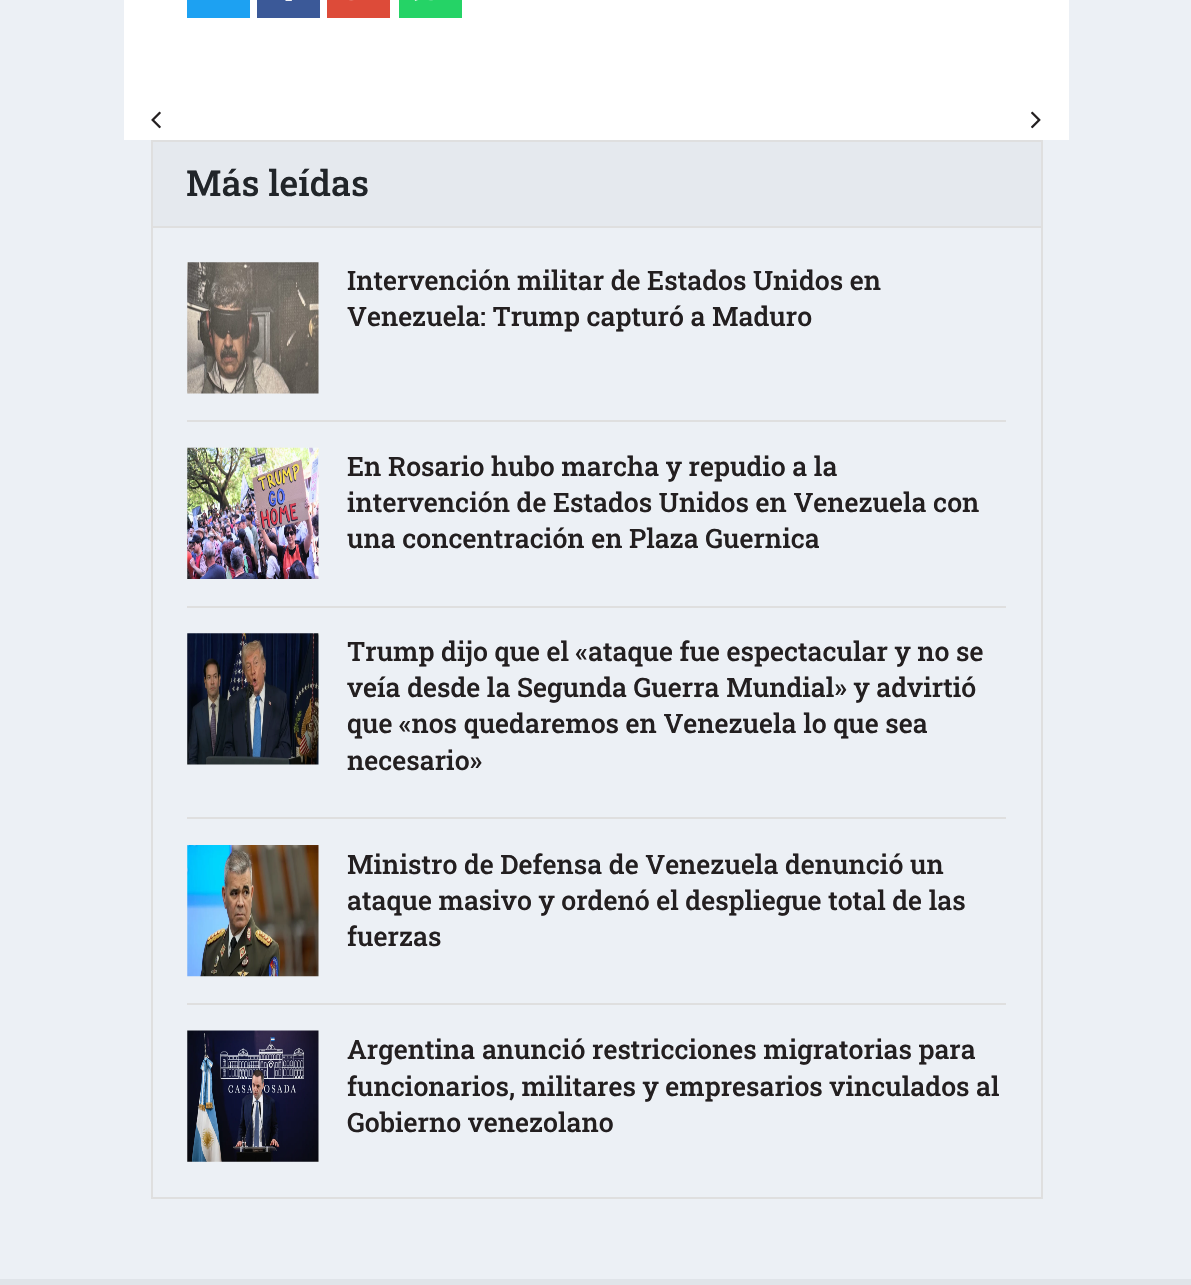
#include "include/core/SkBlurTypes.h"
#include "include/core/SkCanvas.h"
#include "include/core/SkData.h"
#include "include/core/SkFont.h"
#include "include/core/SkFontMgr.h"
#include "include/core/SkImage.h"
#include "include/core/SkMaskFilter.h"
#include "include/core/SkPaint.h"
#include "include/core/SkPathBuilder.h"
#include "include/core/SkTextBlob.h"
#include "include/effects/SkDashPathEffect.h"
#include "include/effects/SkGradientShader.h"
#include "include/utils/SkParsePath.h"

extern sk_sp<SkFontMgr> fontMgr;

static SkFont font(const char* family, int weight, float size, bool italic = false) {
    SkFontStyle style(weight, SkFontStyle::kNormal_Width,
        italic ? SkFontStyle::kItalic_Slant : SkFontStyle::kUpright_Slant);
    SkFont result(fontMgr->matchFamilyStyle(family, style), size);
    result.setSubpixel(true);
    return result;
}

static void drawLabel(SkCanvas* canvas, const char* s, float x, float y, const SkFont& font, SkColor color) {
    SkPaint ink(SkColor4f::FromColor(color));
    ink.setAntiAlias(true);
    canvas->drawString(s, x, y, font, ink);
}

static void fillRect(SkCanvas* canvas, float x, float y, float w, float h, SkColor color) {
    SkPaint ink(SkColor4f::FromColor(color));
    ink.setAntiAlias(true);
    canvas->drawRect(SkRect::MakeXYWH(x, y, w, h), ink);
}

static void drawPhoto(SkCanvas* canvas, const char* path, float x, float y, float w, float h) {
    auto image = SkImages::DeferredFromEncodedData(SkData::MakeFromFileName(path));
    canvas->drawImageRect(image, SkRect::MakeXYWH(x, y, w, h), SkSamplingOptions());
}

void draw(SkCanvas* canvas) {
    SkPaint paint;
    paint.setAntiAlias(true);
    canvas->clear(0xFFECF0F5);
    fillRect(canvas, 124, 0, 945, 140, 0xFFFFFFFF);
    fillRect(canvas, 187, 0, 63, 18, 0xFF1DA1F2);
    fillRect(canvas, 257, 0, 63, 18, 0xFF3B5998);
    drawPhoto(canvas, "assets/img1.png", 285, 0, 7, 1);
    fillRect(canvas, 327, 0, 63, 18, 0xFFDD4B39);
    drawPhoto(canvas, "assets/img2.png", 349, 0, 5, 1);
    fillRect(canvas, 399, 0, 63, 18, 0xFF25D366);
    drawPhoto(canvas, "assets/img3.png", 414, 0, 19, 1);
    drawPhoto(canvas, "assets/img4.png", 151, 111, 10, 18);
    drawPhoto(canvas, "assets/img5.png", 1031, 111, 10, 18);
    fillRect(canvas, 153, 142, 888, 84, 0xFFE5E9EE);
    fillRect(canvas, 151, 140, 892, 2, 0xFFDFDFDF);
    fillRect(canvas, 1041, 140, 2, 86, 0xFFDFDFDF);
    fillRect(canvas, 151, 140, 2, 86, 0xFFDFDFDF);
    SkFont font1 = font("Roboto Slab", 500, 35.75f);
    drawLabel(canvas, "Más leídas", 186, 196, font1, 0xFF212529);
    paint.setStroke(true);
    paint.setStrokeWidth(2);
    paint.setColor(0xFFDFDFDF);
    canvas->drawRect(SkRect::MakeXYWH(152, 227, 890, 971), paint);
    fillRect(canvas, 187, 420, 819, 2, 0xFFDFDFDF);
    drawPhoto(canvas, "assets/img6.png", 187, 262, 132, 132);
    SkFont font2 = font("Roboto Slab", 500, 26.75f);
    drawLabel(canvas, "Intervención militar de Estados Unidos en", 347, 290, font2, 0xFF231F20);
    drawLabel(canvas, "Venezuela: Trump capturó a Maduro", 347, 326, font2, 0xFF231F20);
    fillRect(canvas, 187, 606, 819, 2, 0xFFDFDFDF);
    drawPhoto(canvas, "assets/img7.png", 187, 447, 132, 132);
    drawLabel(canvas, "En Rosario hubo marcha y repudio a la", 347, 476, font2, 0xFF231F20);
    drawLabel(canvas, "intervención de Estados Unidos en Venezuela con", 347, 512, font2, 0xFF231F20);
    drawLabel(canvas, "una concentración en Plaza Guernica", 347, 548, font2, 0xFF231F20);
    fillRect(canvas, 187, 817, 819, 2, 0xFFDFDFDF);
    drawPhoto(canvas, "assets/img8.png", 187, 633, 132, 132);
    drawLabel(canvas, "Trump dijo que el «ataque fue espectacular y no se", 347, 661, font2, 0xFF231F20);
    drawLabel(canvas, "veía desde la Segunda Guerra Mundial» y advirtió", 347, 697, font2, 0xFF231F20);
    drawLabel(canvas, "que «nos quedaremos en Venezuela lo que sea", 347, 733, font2, 0xFF231F20);
    drawLabel(canvas, "necesario»", 347, 770, font2, 0xFF231F20);
    fillRect(canvas, 187, 1003, 819, 2, 0xFFDFDFDF);
    drawPhoto(canvas, "assets/img9.png", 187, 845, 132, 132);
    drawLabel(canvas, "Ministro de Defensa de Venezuela denunció un", 347, 874, font2, 0xFF231F20);
    drawLabel(canvas, "ataque masivo y ordenó el despliegue total de las", 347, 910, font2, 0xFF231F20);
    drawLabel(canvas, "fuerzas", 347, 946, font2, 0xFF231F20);
    drawPhoto(canvas, "assets/img10.png", 187, 1030, 132, 132);
    drawLabel(canvas, "Argentina anunció restricciones migratorias para", 347, 1059, font2, 0xFF231F20);
    drawLabel(canvas, "funcionarios, militares y empresarios vinculados al", 347, 1096, font2, 0xFF231F20);
    drawLabel(canvas, "Gobierno venezolano", 347, 1132, font2, 0xFF231F20);
    fillRect(canvas, 0, 1279, 1191, 6, 0xFFE0E4E9);
}
